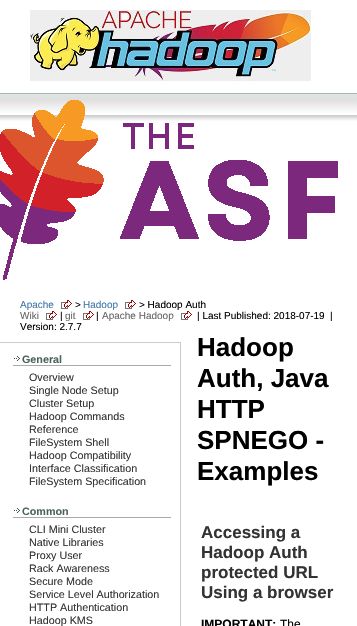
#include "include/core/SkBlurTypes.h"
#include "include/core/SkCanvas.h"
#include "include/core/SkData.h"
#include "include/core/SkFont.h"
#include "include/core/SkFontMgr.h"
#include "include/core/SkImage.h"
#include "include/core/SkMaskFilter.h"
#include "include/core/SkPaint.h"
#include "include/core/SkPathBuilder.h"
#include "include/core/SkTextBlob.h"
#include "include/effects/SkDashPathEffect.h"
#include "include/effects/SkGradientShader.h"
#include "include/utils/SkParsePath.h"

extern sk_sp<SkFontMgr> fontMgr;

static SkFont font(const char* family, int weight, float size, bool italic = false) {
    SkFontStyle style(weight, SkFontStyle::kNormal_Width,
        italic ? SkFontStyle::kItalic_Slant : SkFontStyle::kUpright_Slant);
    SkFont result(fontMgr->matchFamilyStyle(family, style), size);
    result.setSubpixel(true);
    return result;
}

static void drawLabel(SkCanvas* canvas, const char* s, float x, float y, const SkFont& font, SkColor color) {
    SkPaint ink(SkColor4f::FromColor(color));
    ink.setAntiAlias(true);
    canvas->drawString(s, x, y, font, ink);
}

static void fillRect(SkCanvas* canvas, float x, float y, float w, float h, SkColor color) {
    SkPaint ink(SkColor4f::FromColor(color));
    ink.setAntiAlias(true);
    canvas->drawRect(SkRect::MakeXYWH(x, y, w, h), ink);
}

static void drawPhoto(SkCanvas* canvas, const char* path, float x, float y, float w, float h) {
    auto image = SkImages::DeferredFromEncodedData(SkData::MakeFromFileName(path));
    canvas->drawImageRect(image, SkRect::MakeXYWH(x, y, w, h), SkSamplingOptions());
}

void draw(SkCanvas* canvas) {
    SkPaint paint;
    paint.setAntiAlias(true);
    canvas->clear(0xFFFFFFFF);
    drawPhoto(canvas, "assets/img1.png", 30, 10, 281, 71);
    drawPhoto(canvas, "assets/img3.png", 0, 93, 357, 28);
    drawPhoto(canvas, "assets/img2.png", 0, 100, 338, 180);
    SkFont font1 = font("Liberation Sans", 400, 10);
    drawLabel(canvas, "Apache", 20, 308, font1, 0xFF4477AA);
    drawPhoto(canvas, "assets/img4.png", 61, 300, 11, 9);
    drawLabel(canvas, ">", 75, 308, font1, 0xFF000000);
    drawLabel(canvas, "Hadoop", 83, 308, font1, 0xFF4477AA);
    drawPhoto(canvas, "assets/img4.png", 125, 300, 11, 9);
    drawLabel(canvas, "> Hadoop Auth", 139, 308, font1, 0xFF000000);
    drawLabel(canvas, "Wiki", 20, 319, font1, 0xFF666666);
    drawPhoto(canvas, "assets/img4.png", 46, 311, 11, 9);
    drawLabel(canvas, "|", 60, 319, font1, 0xFF000000);
    drawLabel(canvas, "git", 65, 319, font1, 0xFF666666);
    drawPhoto(canvas, "assets/img4.png", 83, 311, 11, 9);
    drawLabel(canvas, "|", 96, 319, font1, 0xFF000000);
    drawLabel(canvas, "Apache Hadoop", 102, 319, font1, 0xFF666666);
    drawPhoto(canvas, "assets/img4.png", 181, 311, 11, 9);
    drawLabel(canvas, "| Last Published: 2018-07-19", 197, 319, font1, 0xFF000000);
    drawLabel(canvas, "|", 330, 319, font1, 0xFF000000);
    drawLabel(canvas, "Version: 2.7.7", 20, 330, font1, 0xFF000000);
    fillRect(canvas, 0, 342, 181, 1, 0xFFCCCCCC);
    fillRect(canvas, 180, 342, 1, 284, 0xFFCCCCCC);
    drawPhoto(canvas, "assets/img5.png", 13, 355, 8, 8);
    fillRect(canvas, 13, 365, 158, 1, 0xFFAAAAAA);
    SkFont font2 = font("Liberation Sans", 700, 10.75f);
    drawLabel(canvas, "General", 22, 363, font2, 0xFF49635A);
    SkFont font3 = font("Liberation Sans", 400, 10.75f);
    drawLabel(canvas, "Overview", 29, 381, font3, 0xFF333333);
    drawLabel(canvas, "Single Node Setup", 29, 394, font3, 0xFF333333);
    drawLabel(canvas, "Cluster Setup", 29, 407, font3, 0xFF333333);
    drawLabel(canvas, "Hadoop Commands", 29, 420, font3, 0xFF333333);
    drawLabel(canvas, "Reference", 29, 433, font3, 0xFF333333);
    drawLabel(canvas, "FileSystem Shell", 29, 446, font3, 0xFF333333);
    drawLabel(canvas, "Hadoop Compatibility", 29, 459, font3, 0xFF333333);
    drawLabel(canvas, "Interface Classification", 29, 472, font3, 0xFF333333);
    drawLabel(canvas, "FileSystem Specification", 29, 485, font3, 0xFF333333);
    drawPhoto(canvas, "assets/img5.png", 13, 507, 8, 8);
    fillRect(canvas, 13, 517, 158, 1, 0xFFAAAAAA);
    drawLabel(canvas, "Common", 22, 515, font2, 0xFF49635A);
    drawLabel(canvas, "CLI Mini Cluster", 29, 533, font3, 0xFF333333);
    drawLabel(canvas, "Native Libraries", 29, 546, font3, 0xFF333333);
    drawLabel(canvas, "Proxy User", 29, 559, font3, 0xFF333333);
    drawLabel(canvas, "Rack Awareness", 29, 572, font3, 0xFF333333);
    drawLabel(canvas, "Secure Mode", 29, 585, font3, 0xFF333333);
    drawLabel(canvas, "Service Level Authorization", 29, 598, font3, 0xFF333333);
    drawLabel(canvas, "HTTP Authentication", 29, 611, font3, 0xFF333333);
    drawLabel(canvas, "Hadoop KMS", 29, 624, font3, 0xFF333333);
    SkFont font4 = font("Liberation Sans", 700, 26);
    drawLabel(canvas, "Hadoop", 197, 356, font4, 0xFF000000);
    drawLabel(canvas, "Auth, Java", 197, 387, font4, 0xFF000000);
    drawLabel(canvas, "HTTP", 197, 418, font4, 0xFF000000);
    drawLabel(canvas, "SPNEGO -", 197, 449, font4, 0xFF000000);
    drawLabel(canvas, "Examples", 197, 480, font4, 0xFF000000);
    SkFont font5 = font("Liberation Sans", 700, 17);
    drawLabel(canvas, "Accessing a", 201, 538, font5, 0xFF333333);
    drawLabel(canvas, "Hadoop Auth", 201, 558, font5, 0xFF333333);
    drawLabel(canvas, "protected URL", 201, 578, font5, 0xFF333333);
    drawLabel(canvas, "Using a browser", 201, 598, font5, 0xFF333333);
    SkFont font6 = font("Liberation Sans", 700, 12);
    drawLabel(canvas, "IMPORTANT:", 201, 628, font6, 0xFF000000);
    SkFont font7 = font("Liberation Sans", 400, 12);
    drawLabel(canvas, "The", 280, 628, font7, 0xFF000000);
}
